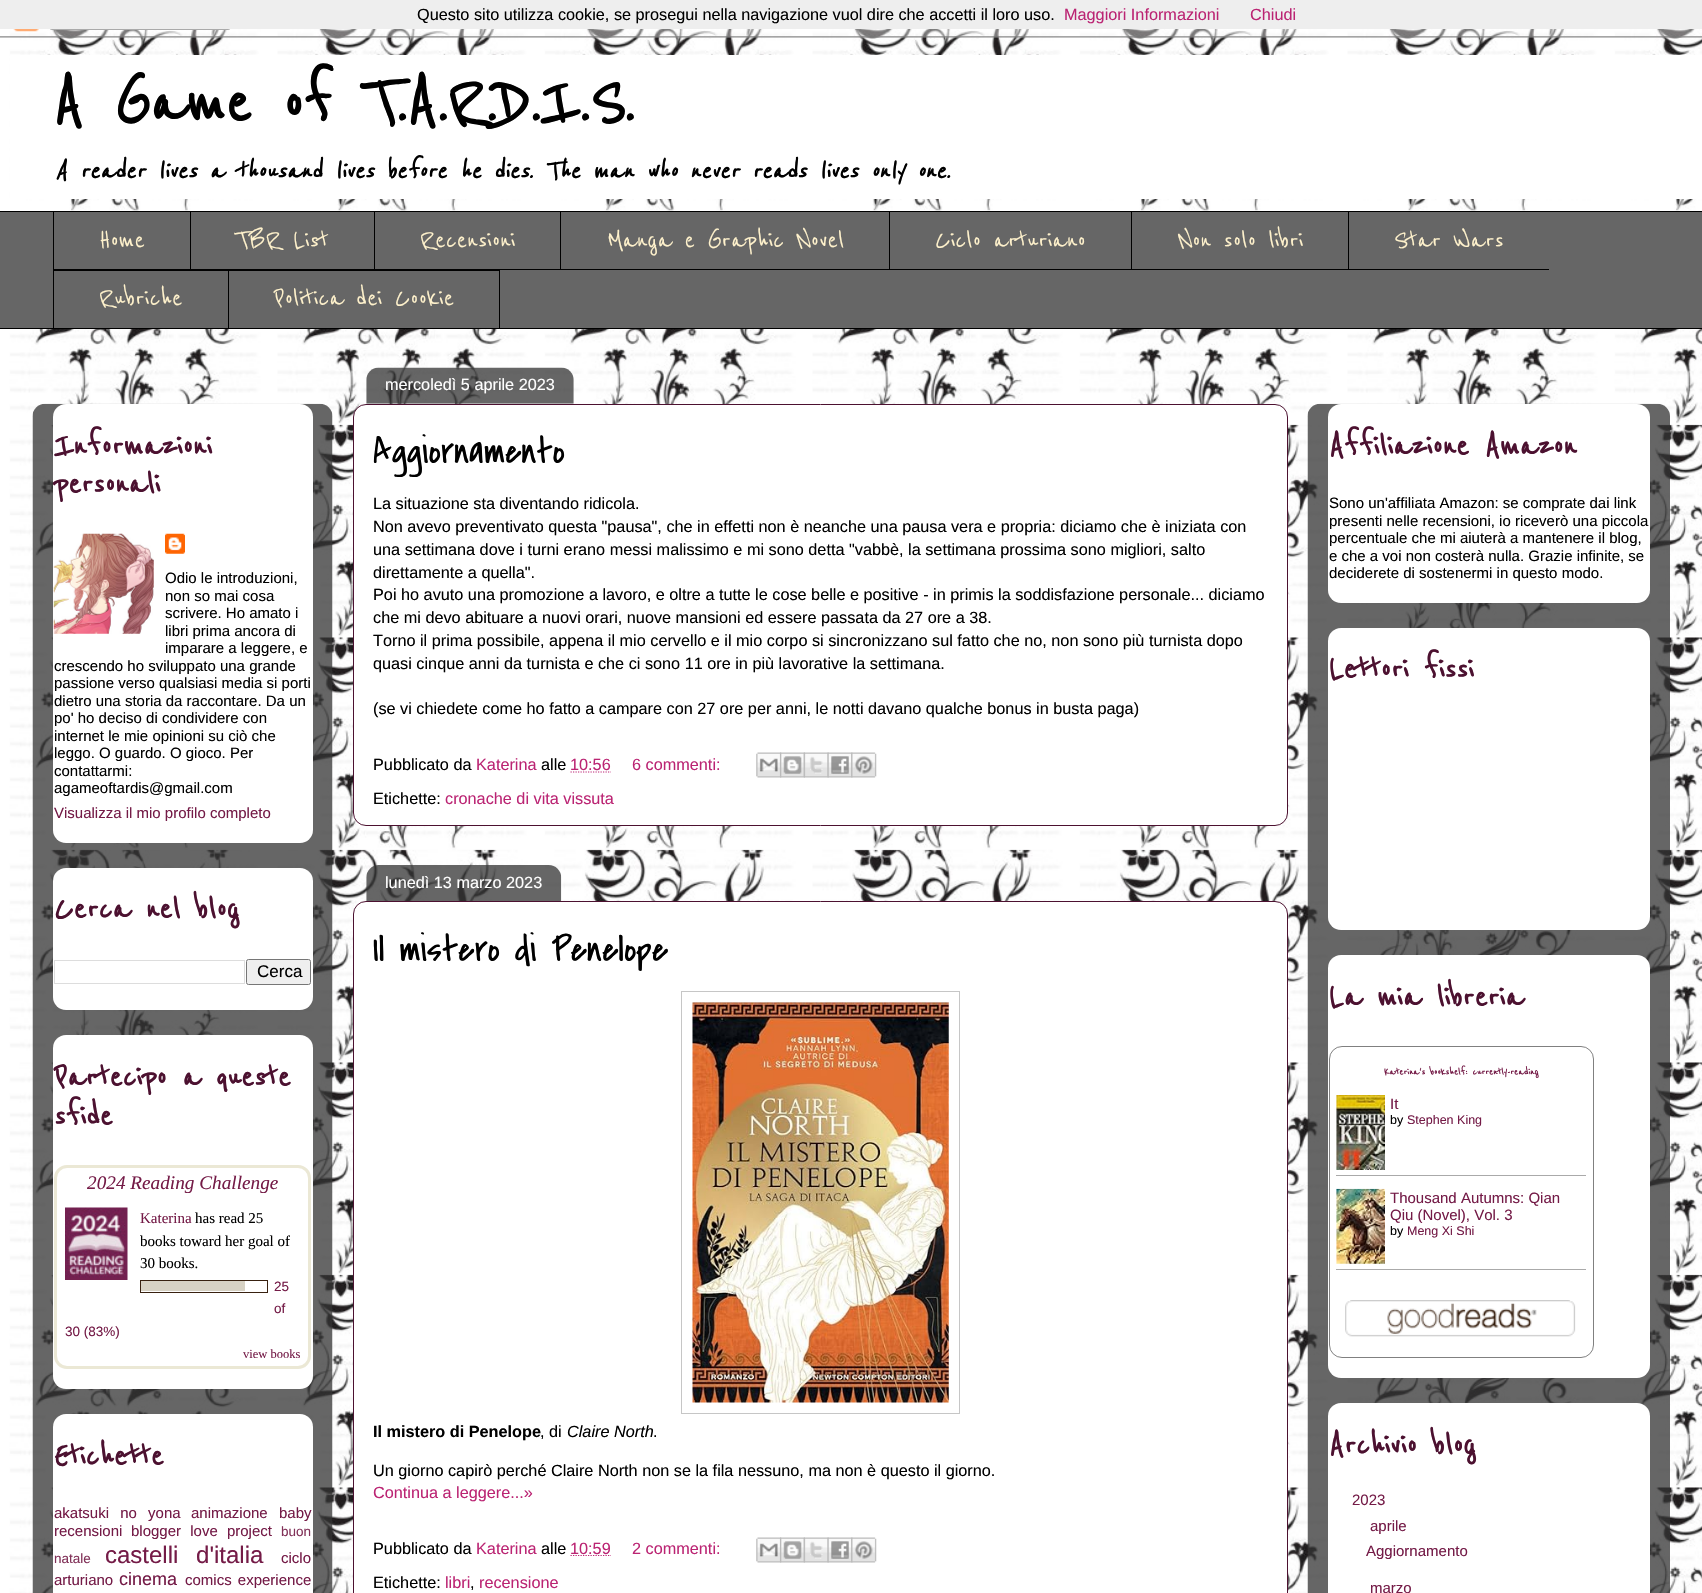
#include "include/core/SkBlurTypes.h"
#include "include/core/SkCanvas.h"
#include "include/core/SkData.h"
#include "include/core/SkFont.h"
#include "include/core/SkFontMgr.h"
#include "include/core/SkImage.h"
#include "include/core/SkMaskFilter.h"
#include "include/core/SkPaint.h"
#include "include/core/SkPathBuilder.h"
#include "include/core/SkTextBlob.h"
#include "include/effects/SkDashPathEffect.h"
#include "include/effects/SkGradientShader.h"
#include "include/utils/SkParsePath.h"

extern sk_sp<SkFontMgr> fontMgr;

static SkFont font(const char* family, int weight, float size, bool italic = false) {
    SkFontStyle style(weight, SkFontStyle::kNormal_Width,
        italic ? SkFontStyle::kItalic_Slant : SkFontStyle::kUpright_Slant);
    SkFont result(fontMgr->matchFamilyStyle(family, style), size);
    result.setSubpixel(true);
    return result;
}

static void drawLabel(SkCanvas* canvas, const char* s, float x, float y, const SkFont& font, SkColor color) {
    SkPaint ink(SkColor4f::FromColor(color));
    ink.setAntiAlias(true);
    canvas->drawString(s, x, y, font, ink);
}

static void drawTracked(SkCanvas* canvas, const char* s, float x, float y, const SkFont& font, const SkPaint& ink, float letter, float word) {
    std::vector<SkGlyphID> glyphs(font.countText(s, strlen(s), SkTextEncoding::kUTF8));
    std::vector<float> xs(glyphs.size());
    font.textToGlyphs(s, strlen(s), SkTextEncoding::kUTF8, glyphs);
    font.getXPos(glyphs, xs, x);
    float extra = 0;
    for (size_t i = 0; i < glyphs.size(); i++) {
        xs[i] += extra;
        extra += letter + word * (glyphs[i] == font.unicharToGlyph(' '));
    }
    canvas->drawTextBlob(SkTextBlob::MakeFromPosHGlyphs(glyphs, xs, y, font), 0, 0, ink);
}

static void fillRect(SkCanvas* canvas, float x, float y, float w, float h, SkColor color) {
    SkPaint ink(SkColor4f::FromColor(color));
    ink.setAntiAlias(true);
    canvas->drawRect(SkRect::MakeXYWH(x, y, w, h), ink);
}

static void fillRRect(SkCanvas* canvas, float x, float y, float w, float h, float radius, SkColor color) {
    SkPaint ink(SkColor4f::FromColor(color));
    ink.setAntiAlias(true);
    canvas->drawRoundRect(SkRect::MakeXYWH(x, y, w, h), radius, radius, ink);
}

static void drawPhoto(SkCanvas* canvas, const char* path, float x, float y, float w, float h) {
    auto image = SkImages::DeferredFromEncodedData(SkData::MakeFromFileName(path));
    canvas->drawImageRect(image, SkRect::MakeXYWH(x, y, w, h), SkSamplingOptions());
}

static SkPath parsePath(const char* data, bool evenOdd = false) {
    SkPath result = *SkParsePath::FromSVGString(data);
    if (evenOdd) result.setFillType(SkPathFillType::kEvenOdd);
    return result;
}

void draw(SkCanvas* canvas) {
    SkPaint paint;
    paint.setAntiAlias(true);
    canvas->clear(0xFFFFFFFF);
    drawPhoto(canvas, "assets/img1.png", 0, 29, 1702, 1564);
    fillRect(canvas, 0, 0, 1702, 29, 0xFFEEEEEE);
    SkFont font1 = font("Liberation Sans", 400, 16.25f);
    drawLabel(canvas, "Questo sito utilizza cookie, se prosegui nella navigazione vuol dire che accetti il loro uso.", 417, 20, font1, 0xFF000000);
    drawLabel(canvas, "Maggiori Informazioni", 1064, 20, font1, 0xFFBB2473);
    drawLabel(canvas, "Chiudi", 1250, 20, font1, 0xFFBB2473);
    drawPhoto(canvas, "assets/img2.png", 0, 29, 1702, 9);
    fillRect(canvas, 10, 55, 1692, 144, 0xFFFFFFFF);
    SkFont font2 = font("Reenie Beanie", 700, 75);
    drawLabel(canvas, "A Game of T.A.R.D.I.S.", 53, 123, font2, 0xFF000000);
    SkFont font3 = font("Reenie Beanie", 700, 30, true);
    drawLabel(canvas, "A reader lives a thousand lives before he dies. The man who never reads lives only one.", 55, 179, font3, 0xFF000000);
    fillRect(canvas, 0, 212, 1702, 116, 0xFF666666);
    fillRect(canvas, 0, 211, 1702, 1, 0xFF000000);
    fillRect(canvas, 53, 269, 1496, 1, 0xFF000000);
    fillRect(canvas, 53, 211, 1, 59, 0xFF000000);
    SkFont font4 = font("Reenie Beanie", 500, 30);
    drawLabel(canvas, "Home", 99, 248, font4, 0xFFFFF2CC);
    fillRect(canvas, 190, 211, 1, 59, 0xFF000000);
    drawLabel(canvas, "TBR List", 236, 248, font4, 0xFFFFF2CC);
    fillRect(canvas, 374, 211, 1, 59, 0xFF000000);
    drawLabel(canvas, "Recensioni", 420, 248, font4, 0xFFFFF2CC);
    fillRect(canvas, 560, 211, 1, 59, 0xFF000000);
    drawLabel(canvas, "Manga e Graphic Novel", 607, 248, font4, 0xFFFFF2CC);
    fillRect(canvas, 889, 211, 1, 59, 0xFF000000);
    drawLabel(canvas, "Ciclo arturiano", 935, 248, font4, 0xFFFFF2CC);
    fillRect(canvas, 1131, 211, 1, 59, 0xFF000000);
    drawLabel(canvas, "Non solo libri", 1178, 248, font4, 0xFFFFF2CC);
    fillRect(canvas, 1348, 211, 1, 59, 0xFF000000);
    drawLabel(canvas, "Star Wars", 1394, 248, font4, 0xFFFFF2CC);
    fillRect(canvas, 53, 270, 175, 1, 0xFF000000);
    fillRect(canvas, 53, 270, 1, 59, 0xFF000000);
    drawLabel(canvas, "Rubriche", 99, 306, font4, 0xFFFFF2CC);
    paint.setStroke(true);
    paint.setStrokeWidth(1);
    paint.setColor(0xFF000000);
    canvas->drawRect(SkRect::MakeXYWH(228.5f, 270.5f, 271, 58), paint);
    drawLabel(canvas, "Politica dei Cookie", 274, 306, font4, 0xFFFFF2CC);
    fillRect(canvas, 0, 328, 1702, 1, 0xFF000000);
    drawPhoto(canvas, "assets/img3.png", 32, 403, 301, 1190);
    fillRRect(canvas, 53, 404, 260, 439, 13, 0xFFFFFFFF);
    SkFont font5 = font("Reenie Beanie", 700, 37.5f);
    drawLabel(canvas, "Informazioni", 54, 456, font5, 0xFF4C1130);
    drawLabel(canvas, "personali", 54, 494, font5, 0xFF4C1130);
    drawPhoto(canvas, "assets/img4.png", 53, 533, 101, 101);
    drawPhoto(canvas, "assets/img5.png", 165, 533, 20, 21);
    SkFont font6 = font("Liberation Sans", 400, 15);
    drawLabel(canvas, "Odio le introduzioni,", 165, 583, font6, 0xFF000000);
    drawLabel(canvas, "non so mai cosa", 165, 601, font6, 0xFF000000);
    drawLabel(canvas, "scrivere. Ho amato i", 165, 618, font6, 0xFF000000);
    drawLabel(canvas, "libri prima ancora di", 165, 636, font6, 0xFF000000);
    drawLabel(canvas, "imparare a leggere, e", 165, 653, font6, 0xFF000000);
    drawLabel(canvas, "crescendo ho sviluppato una grande", 54, 671, font6, 0xFF000000);
    drawLabel(canvas, "passione verso qualsiasi media si porti", 54, 688, font6, 0xFF000000);
    drawLabel(canvas, "dietro una storia da raccontare. Da un", 54, 706, font6, 0xFF000000);
    drawLabel(canvas, "po' ho deciso di condividere con", 54, 723, font6, 0xFF000000);
    drawLabel(canvas, "internet le mie opinioni su ciò che", 54, 741, font6, 0xFF000000);
    drawLabel(canvas, "leggo. O guardo. O gioco. Per", 54, 758, font6, 0xFF000000);
    drawLabel(canvas, "contattarmi:", 54, 776, font6, 0xFF000000);
    drawLabel(canvas, "agameoftardis@gmail.com", 54, 793, font6, 0xFF000000);
    drawLabel(canvas, "Visualizza il mio profilo completo", 54, 818, font6, 0xFF741B47);
    fillRRect(canvas, 53, 868, 260, 142, 13, 0xFFFFFFFF);
    drawLabel(canvas, "Cerca nel blog", 54, 919, font5, 0xFF4C1130);
    paint.setColor(0xFFDDDDDD);
    canvas->drawRect(SkRect::MakeXYWH(54.5f, 960.5f, 190, 23), paint);
    paint.setStroke(false);
    paint.setColor(0xFFEFEFEF);
    canvas->drawRoundRect(SkRect::MakeXYWH(246.5f, 959.5f, 64, 25), 2, 2, paint);
    paint.setStroke(true);
    paint.setColor(0xFF767676);
    canvas->drawRoundRect(SkRect::MakeXYWH(246.5f, 959.5f, 64, 25), 2, 2, paint);
    SkFont font7 = font("Liberation Sans", 400, 17);
    drawLabel(canvas, "Cerca", 257, 977, font7, 0xFF000000);
    fillRRect(canvas, 53, 1035, 260, 354, 13, 0xFFFFFFFF);
    drawLabel(canvas, "Partecipo a queste", 54, 1087, font5, 0xFF4C1130);
    drawLabel(canvas, "sfide", 54, 1126, font5, 0xFF4C1130);
    paint.setStrokeWidth(3);
    paint.setColor(0xFFEBE8D5);
    canvas->drawRoundRect(SkRect::MakeXYWH(55.5f, 1166.5f, 254, 201), 11.5f, 11.5f, paint);
    SkFont font8 = font("Liberation Serif", 400, 19.25f, true);
    drawLabel(canvas, "2024 Reading Challenge", 87, 1189, font8, 0xFF741B47);
    drawPhoto(canvas, "assets/img6.png", 65, 1207, 63, 73);
    SkFont font9 = font("Liberation Serif", 400, 15);
    drawLabel(canvas, "Katerina", 140, 1223, font9, 0xFF741B47);
    drawLabel(canvas, "has read 25", 195, 1223, font9, 0xFF000000);
    drawLabel(canvas, "books toward her goal of", 140, 1246, font9, 0xFF000000);
    drawLabel(canvas, "30 books.", 140, 1268, font9, 0xFF000000);
    paint.setStrokeWidth(1);
    paint.setColor(0xFF382110);
    canvas->drawRect(SkRect::MakeXYWH(140.5f, 1280.5f, 127, 12), paint);
    fillRect(canvas, 141, 1281, 104, 10, 0xFFD7D2C4);
    SkFont font10 = font("Liberation Sans", 400, 13.5f);
    drawLabel(canvas, "25", 274, 1291, font10, 0xFF741B47);
    drawLabel(canvas, "of", 274, 1313, font10, 0xFF741B47);
    drawLabel(canvas, "30 (83%)", 65, 1336, font10, 0xFF741B47);
    SkFont font11 = font("Liberation Serif", 400, 12.5f);
    drawLabel(canvas, "view books", 243, 1358, font11, 0xFF741B47);
    fillRRect(canvas, 53, 1414, 260, 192, 13, 0xFFFFFFFF);
    drawLabel(canvas, "Etichette", 54, 1466, font5, 0xFF4C1130);
    paint.setStroke(false);
    paint.setColor(0xFF741B47);
    drawTracked(canvas, "akatsuki no yona", 54, 1518, font6, paint, 0, 7);
    drawLabel(canvas, "animazione", 191, 1518, font6, 0xFF741B47);
    drawLabel(canvas, "baby", 279, 1518, font6, 0xFF741B47);
    drawLabel(canvas, "recensioni", 54, 1536, font6, 0xFF741B47);
    drawTracked(canvas, "blogger love project", 131, 1536, font6, paint, 0, 5);
    drawLabel(canvas, "buon", 281, 1536, font10, 0xFF823259);
    drawLabel(canvas, "natale", 54, 1563, font10, 0xFF823259);
    SkFont font12 = font("Liberation Sans", 400, 24);
    drawTracked(canvas, "castelli d'italia", 105, 1563, font12, paint, 0, 11);
    drawLabel(canvas, "ciclo", 281, 1563, font6, 0xFF741B47);
    drawLabel(canvas, "arturiano", 54, 1585, font6, 0xFF741B47);
    SkFont font13 = font("Liberation Sans", 400, 18);
    drawLabel(canvas, "cinema", 119, 1585, font13, 0xFF741B47);
    drawTracked(canvas, "comics experience", 185, 1585, font6, paint, 0, 2);
    paint.setColor(0xFFFFFFFF);
    canvas->drawRoundRect(SkRect::MakeXYWH(353.5f, 404.5f, 934, 421), 12.5f, 12.5f, paint);
    paint.setStroke(true);
    paint.setColor(0xFF4C1130);
    canvas->drawRoundRect(SkRect::MakeXYWH(353.5f, 404.5f, 934, 421), 12.5f, 12.5f, paint);
    drawPhoto(canvas, "assets/img7.png", 366, 367, 208, 37);
    drawLabel(canvas, "mercoledì 5 aprile 2023", 385, 390, font1, 0xFFFFFFFF);
    SkFont font14 = font("Covered By Your Grace", 400, 37.5f);
    drawLabel(canvas, "Aggiornamento", 373, 463, font14, 0xFF000000);
    drawLabel(canvas, "La situazione sta diventando ridicola.", 373, 509, font1, 0xFF000000);
    drawLabel(canvas, "Non avevo preventivato questa \"pausa\", che in effetti non è neanche una pausa vera e propria: diciamo che è iniziata con", 373, 532, font1, 0xFF000000);
    drawLabel(canvas, "una settimana dove i turni erano messi malissimo e mi sono detta \"vabbè, la settimana prossima sono migliori, salto", 373, 555, font1, 0xFF000000);
    drawLabel(canvas, "direttamente a quella\".", 373, 578, font1, 0xFF000000);
    drawLabel(canvas, "Poi ho avuto una promozione a lavoro, e oltre a tutte le cose belle e positive - in primis la soddisfazione personale... diciamo", 373, 600, font1, 0xFF000000);
    drawLabel(canvas, "che mi devo abituare a nuovi orari, nuove mansioni ed essere passata da 27 ore a 38.", 373, 623, font1, 0xFF000000);
    drawLabel(canvas, "Torno il prima possibile, appena il mio cervello e il mio corpo si sincronizzano sul fatto che no, non sono più turnista dopo", 373, 646, font1, 0xFF000000);
    drawLabel(canvas, "quasi cinque anni da turnista e che ci sono 11 ore in più lavorative la settimana.", 373, 669, font1, 0xFF000000);
    drawLabel(canvas, "(se vi chiedete come ho fatto a campare con 27 ore per anni, le notti davano qualche bonus in busta paga)", 373, 714, font1, 0xFF000000);
    drawLabel(canvas, "Pubblicato da", 373, 770, font1, 0xFF000000);
    drawLabel(canvas, "Katerina", 476, 770, font1, 0xFFBB2473);
    drawLabel(canvas, "alle", 541, 770, font1, 0xFF000000);
    drawLabel(canvas, "10:56", 570, 770, font1, 0xFFBB2473);
    paint.setStrokeWidth(1.2f);
    paint.setColor(0xFFBB2473);
    paint.setPathEffect(SkDashPathEffect::Make({{1.25f, 1.25f}}, 0));
    canvas->drawPath(parsePath("M570.5 772H611"), paint);
    paint.setPathEffect(nullptr);
    drawLabel(canvas, "6 commenti:", 632, 770, font1, 0xFFBB2473);
    drawPhoto(canvas, "assets/img8.png", 756, 752, 26, 26);
    drawPhoto(canvas, "assets/img9.png", 780, 752, 25, 26);
    drawPhoto(canvas, "assets/img10.png", 803, 752, 26, 26);
    drawPhoto(canvas, "assets/img11.png", 827, 752, 26, 26);
    drawPhoto(canvas, "assets/img12.png", 851, 752, 26, 26);
    drawLabel(canvas, "Etichette:", 373, 804, font1, 0xFF000000);
    drawLabel(canvas, "cronache di vita vissuta", 445, 804, font1, 0xFFBB2473);
    paint.setStroke(false);
    paint.setColor(0xFFFFFFFF);
    canvas->drawRoundRect(SkRect::MakeXYWH(353.5f, 901.5f, 934, 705), 12.5f, 12.5f, paint);
    paint.setStroke(true);
    paint.setStrokeWidth(1);
    paint.setColor(0xFF4C1130);
    canvas->drawRoundRect(SkRect::MakeXYWH(353.5f, 901.5f, 934, 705), 12.5f, 12.5f, paint);
    drawPhoto(canvas, "assets/img13.png", 366, 865, 196, 36);
    drawLabel(canvas, "lunedì 13 marzo 2023", 385, 888, font1, 0xFFFFFFFF);
    drawLabel(canvas, "Il mistero di Penelope", 373, 961, font14, 0xFF000000);
    paint.setColor(0xFFC6C6C6);
    canvas->drawRect(SkRect::MakeXYWH(681.5f, 991.5f, 278, 422), paint);
    drawPhoto(canvas, "assets/img14.png", 692, 1002, 257, 401);
    SkFont font15 = font("Liberation Sans", 700, 16.25f);
    drawLabel(canvas, "Il mistero di Penelope", 373, 1437, font15, 0xFF000000);
    drawLabel(canvas, ", di", 540, 1437, font1, 0xFF000000);
    SkFont font16 = font("Liberation Sans", 400, 16.25f, true);
    drawLabel(canvas, "Claire North", 567, 1437, font16, 0xFF000000);
    drawLabel(canvas, ".", 653, 1437, font1, 0xFF000000);
    drawLabel(canvas, "Un giorno capirò perché Claire North non se la fila nessuno, ma non è questo il giorno.", 373, 1476, font1, 0xFF000000);
    drawLabel(canvas, "Continua a leggere...»", 373, 1498, font1, 0xFFBB2473);
    drawLabel(canvas, "Pubblicato da", 373, 1554, font1, 0xFF000000);
    drawLabel(canvas, "Katerina", 476, 1554, font1, 0xFFBB2473);
    drawLabel(canvas, "alle", 541, 1554, font1, 0xFF000000);
    paint.setStrokeWidth(1.2f);
    paint.setColor(0xFFBB2473);
    paint.setPathEffect(SkDashPathEffect::Make({{1.25f, 1.25f}}, 0));
    canvas->drawPath(parsePath("M570.5 1555.5H611"), paint);
    paint.setPathEffect(nullptr);
    drawLabel(canvas, "10:59", 570, 1554, font1, 0xFFBB2473);
    drawLabel(canvas, "2 commenti:", 632, 1554, font1, 0xFFBB2473);
    drawPhoto(canvas, "assets/img8.png", 756, 1537, 26, 26);
    drawPhoto(canvas, "assets/img9.png", 780, 1537, 25, 26);
    drawPhoto(canvas, "assets/img10.png", 803, 1537, 26, 26);
    drawPhoto(canvas, "assets/img11.png", 827, 1537, 26, 26);
    drawPhoto(canvas, "assets/img12.png", 851, 1537, 26, 26);
    drawLabel(canvas, "Etichette:", 373, 1588, font1, 0xFF000000);
    drawLabel(canvas, "libri", 445, 1588, font1, 0xFFBB2473);
    drawLabel(canvas, ",", 470, 1588, font1, 0xFF000000);
    drawLabel(canvas, "recensione", 479, 1588, font1, 0xFFBB2473);
    drawPhoto(canvas, "assets/img15.png", 1307, 403, 363, 1190);
    fillRRect(canvas, 1328, 404, 322, 199, 13, 0xFFFFFFFF);
    drawLabel(canvas, "Affiliazione Amazon", 1329, 456, font5, 0xFF4C1130);
    drawLabel(canvas, "Sono un'affiliata Amazon: se comprate dai link", 1329, 508, font6, 0xFF000000);
    drawLabel(canvas, "presenti nelle recensioni, io riceverò una piccola", 1329, 526, font6, 0xFF000000);
    drawLabel(canvas, "percentuale che mi aiuterà a mantenere il blog,", 1329, 543, font6, 0xFF000000);
    drawLabel(canvas, "e che a voi non costerà nulla. Grazie infinite, se", 1329, 561, font6, 0xFF000000);
    drawLabel(canvas, "deciderete di sostenermi in questo modo.", 1329, 578, font6, 0xFF000000);
    fillRRect(canvas, 1328, 628, 322, 302, 13, 0xFFFFFFFF);
    drawLabel(canvas, "Lettori fissi", 1329, 679, font5, 0xFF4C1130);
    fillRRect(canvas, 1328, 955, 322, 423, 13, 0xFFFFFFFF);
    drawLabel(canvas, "La mia libreria", 1329, 1007, font5, 0xFF4C1130);
    paint.setStrokeWidth(1);
    paint.setColor(0xFF808080);
    canvas->drawRoundRect(SkRect::MakeXYWH(1329.5f, 1046.5f, 264, 311), 12.5f, 12.5f, paint);
    SkFont font17 = font("Reenie Beanie", 700, 12);
    drawLabel(canvas, "Katerina's bookshelf: currently-reading", 1384, 1075, font17, 0xFF741B47);
    fillRect(canvas, 1336, 1175, 250, 1, 0xFFAAAAAA);
    drawPhoto(canvas, "assets/img16.png", 1336, 1095, 49, 75);
    drawLabel(canvas, "It", 1390, 1109, font6, 0xFF741B47);
    SkFont font18 = font("Liberation Sans", 400, 12.5f);
    drawLabel(canvas, "by", 1390, 1124, font18, 0xFF000000);
    drawLabel(canvas, "Stephen King", 1407, 1124, font18, 0xFF741B47);
    fillRect(canvas, 1336, 1269, 250, 1, 0xFFAAAAAA);
    drawPhoto(canvas, "assets/img17.png", 1336, 1188, 49, 76);
    drawLabel(canvas, "Thousand Autumns: Qian", 1390, 1203, font6, 0xFF741B47);
    drawLabel(canvas, "Qiu (Novel), Vol. 3", 1390, 1220, font6, 0xFF741B47);
    drawLabel(canvas, "by", 1390, 1235, font18, 0xFF000000);
    drawLabel(canvas, "Meng Xi Shi", 1407, 1235, font18, 0xFF741B47);
    drawPhoto(canvas, "assets/img18.png", 1345, 1300, 231, 37);
    fillRRect(canvas, 1328, 1403, 322, 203, 13, 0xFFFFFFFF);
    drawLabel(canvas, "Archivio blog", 1329, 1455, font5, 0xFF4C1130);
    drawLabel(canvas, "2023", 1352, 1505, font6, 0xFF741B47);
    drawLabel(canvas, "aprile", 1370, 1531, font6, 0xFF741B47);
    drawLabel(canvas, "Aggiornamento", 1366, 1556, font6, 0xFF741B47);
    drawLabel(canvas, "marzo", 1370, 1593, font6, 0xFF741B47);
}
